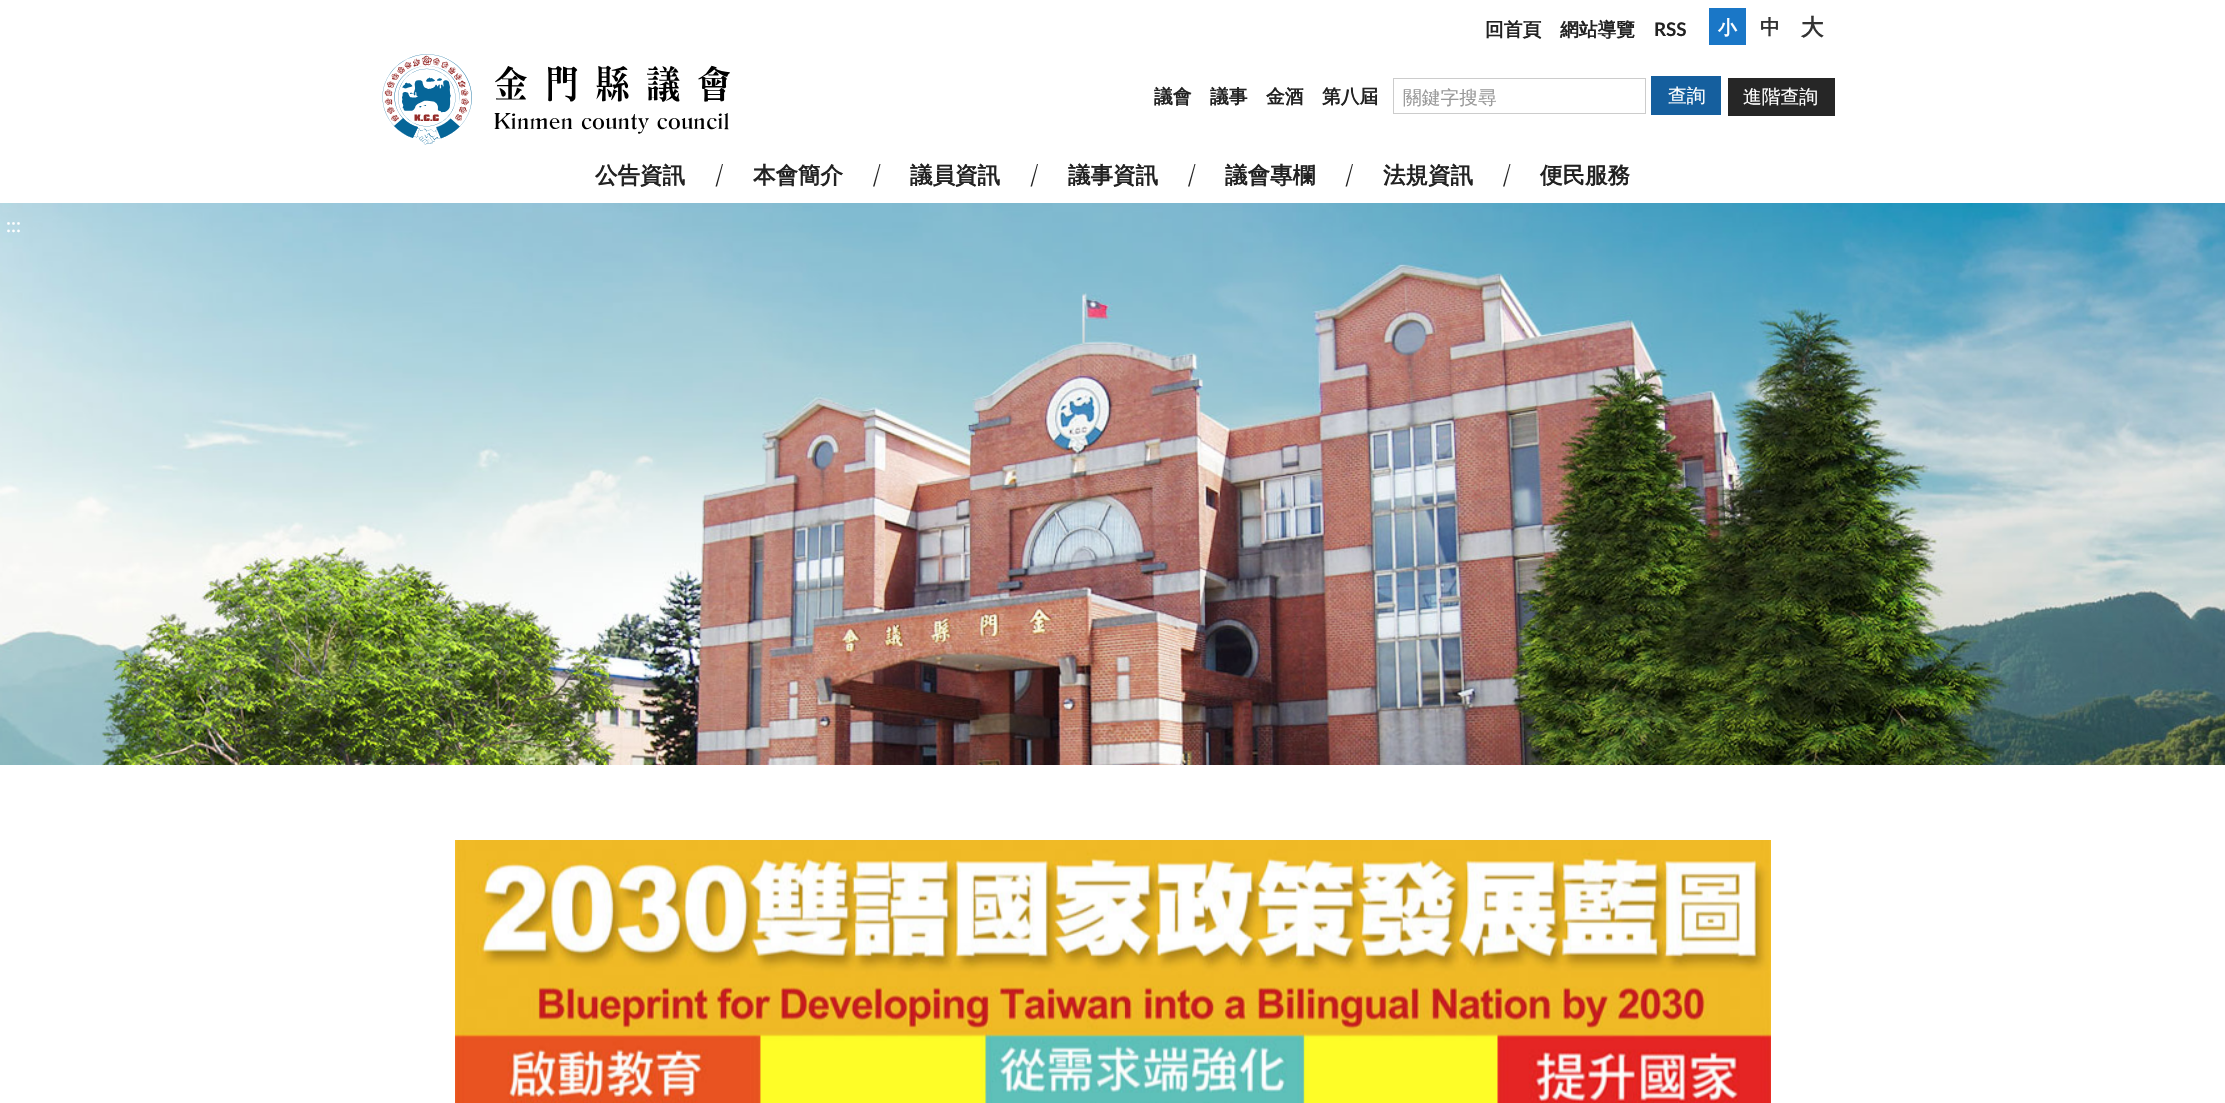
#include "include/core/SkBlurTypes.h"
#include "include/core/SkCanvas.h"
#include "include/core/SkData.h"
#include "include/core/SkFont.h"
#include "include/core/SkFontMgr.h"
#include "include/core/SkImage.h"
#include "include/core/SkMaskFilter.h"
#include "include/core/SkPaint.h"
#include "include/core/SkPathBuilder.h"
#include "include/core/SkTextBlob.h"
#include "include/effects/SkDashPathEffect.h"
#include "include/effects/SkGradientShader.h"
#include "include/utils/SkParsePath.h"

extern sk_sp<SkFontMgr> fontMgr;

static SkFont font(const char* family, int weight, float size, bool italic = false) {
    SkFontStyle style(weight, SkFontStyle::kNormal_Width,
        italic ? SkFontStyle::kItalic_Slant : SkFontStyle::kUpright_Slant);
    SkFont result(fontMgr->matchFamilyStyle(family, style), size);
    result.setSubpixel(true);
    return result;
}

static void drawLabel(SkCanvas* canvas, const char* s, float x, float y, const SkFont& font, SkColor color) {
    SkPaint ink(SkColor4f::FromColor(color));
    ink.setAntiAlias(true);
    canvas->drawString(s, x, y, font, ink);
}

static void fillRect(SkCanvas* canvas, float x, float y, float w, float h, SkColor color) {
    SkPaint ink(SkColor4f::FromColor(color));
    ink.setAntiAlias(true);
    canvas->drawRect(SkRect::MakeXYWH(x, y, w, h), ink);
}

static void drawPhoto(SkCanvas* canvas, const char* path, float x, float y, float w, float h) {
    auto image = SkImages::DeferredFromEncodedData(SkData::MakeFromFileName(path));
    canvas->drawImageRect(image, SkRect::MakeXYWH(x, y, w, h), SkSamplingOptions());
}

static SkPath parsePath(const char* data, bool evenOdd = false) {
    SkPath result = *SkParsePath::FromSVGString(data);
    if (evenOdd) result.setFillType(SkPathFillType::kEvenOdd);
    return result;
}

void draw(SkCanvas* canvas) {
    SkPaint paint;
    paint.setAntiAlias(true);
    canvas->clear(0xFFFFFFFF);
    SkFont font1 = font("WenQuanYi Zen Hei", 700, 18.75f);
    drawLabel(canvas, "回首頁", 1485, 36, font1, 0xFF222222);
    drawLabel(canvas, "網站導覽", 1560, 36, font1, 0xFF222222);
    SkFont font2 = font("Lato", 700, 18.75f);
    drawLabel(canvas, "RSS", 1654, 36, font2, 0xFF222222);
    fillRect(canvas, 1709, 8, 37, 37, 0xFF1A77C7);
    drawLabel(canvas, "小", 1718, 34, font1, 0xFFFFFFFF);
    SkFont font3 = font("WenQuanYi Zen Hei", 700, 20);
    drawLabel(canvas, "中", 1760, 34, font3, 0xFF333333);
    SkFont font4 = font("WenQuanYi Zen Hei", 700, 22.5f);
    drawLabel(canvas, "大", 1801, 35, font4, 0xFF333333);
    drawPhoto(canvas, "assets/img1.png", 382, 54, 348, 91);
    drawLabel(canvas, "議會", 1154, 103, font1, 0xFF222222);
    drawLabel(canvas, "議事", 1210, 103, font1, 0xFF222222);
    drawLabel(canvas, "金酒", 1266, 103, font1, 0xFF222222);
    drawLabel(canvas, "第八屆", 1322, 103, font1, 0xFF222222);
    paint.setStroke(true);
    paint.setStrokeWidth(1);
    paint.setColor(0xFFCCCCCC);
    canvas->drawRect(SkRect::MakeXYWH(1393.5f, 78.5f, 252, 35), paint);
    SkFont font5 = font("WenQuanYi Zen Hei", 500, 18.75f);
    drawLabel(canvas, "關鍵字搜尋", 1403, 104, font5, 0xFF999999);
    fillRect(canvas, 1651, 76, 70, 39, 0xFF155F9E);
    drawLabel(canvas, "查詢", 1668, 102, font5, 0xFFFFFFFF);
    fillRect(canvas, 1728, 78, 107, 38, 0xFF262626);
    drawLabel(canvas, "進階查詢", 1743, 103, font5, 0xFFFFFFFF);
    drawLabel(canvas, "公告資訊", 595, 183, font4, 0xFF222222);
    paint.setStroke(false);
    paint.setColor(0xFF222222);
    canvas->drawPath(parsePath("M722 164H723L717 186.5H715.5Z"), paint);
    drawLabel(canvas, "本會簡介", 753, 183, font4, 0xFF222222);
    canvas->drawPath(parsePath("M879.5 164H880.5L874.5 186.5H873Z"), paint);
    drawLabel(canvas, "議員資訊", 910, 183, font4, 0xFF222222);
    canvas->drawPath(parsePath("M1037 164H1038L1032 186.5H1030.5Z"), paint);
    drawLabel(canvas, "議事資訊", 1068, 183, font4, 0xFF222222);
    canvas->drawPath(parsePath("M1194.5 164H1195.5L1189.5 186.5H1188Z"), paint);
    drawLabel(canvas, "議會專欄", 1225, 183, font4, 0xFF222222);
    canvas->drawPath(parsePath("M1352 164H1353L1347 186.5H1345.5Z"), paint);
    drawLabel(canvas, "法規資訊", 1383, 183, font4, 0xFF222222);
    canvas->drawPath(parsePath("M1509.5 164H1510.5L1504.5 186.5H1503Z"), paint);
    drawLabel(canvas, "便民服務", 1540, 183, font4, 0xFF222222);
    drawPhoto(canvas, "assets/img2.png", 0, 203, 2225, 562);
    SkFont font6 = font("Lato", 400, 20);
    drawLabel(canvas, ":::", 6, 232, font6, 0xFFFFFFFF);
    drawPhoto(canvas, "assets/img3.png", 455, 840, 1316, 263);
}
